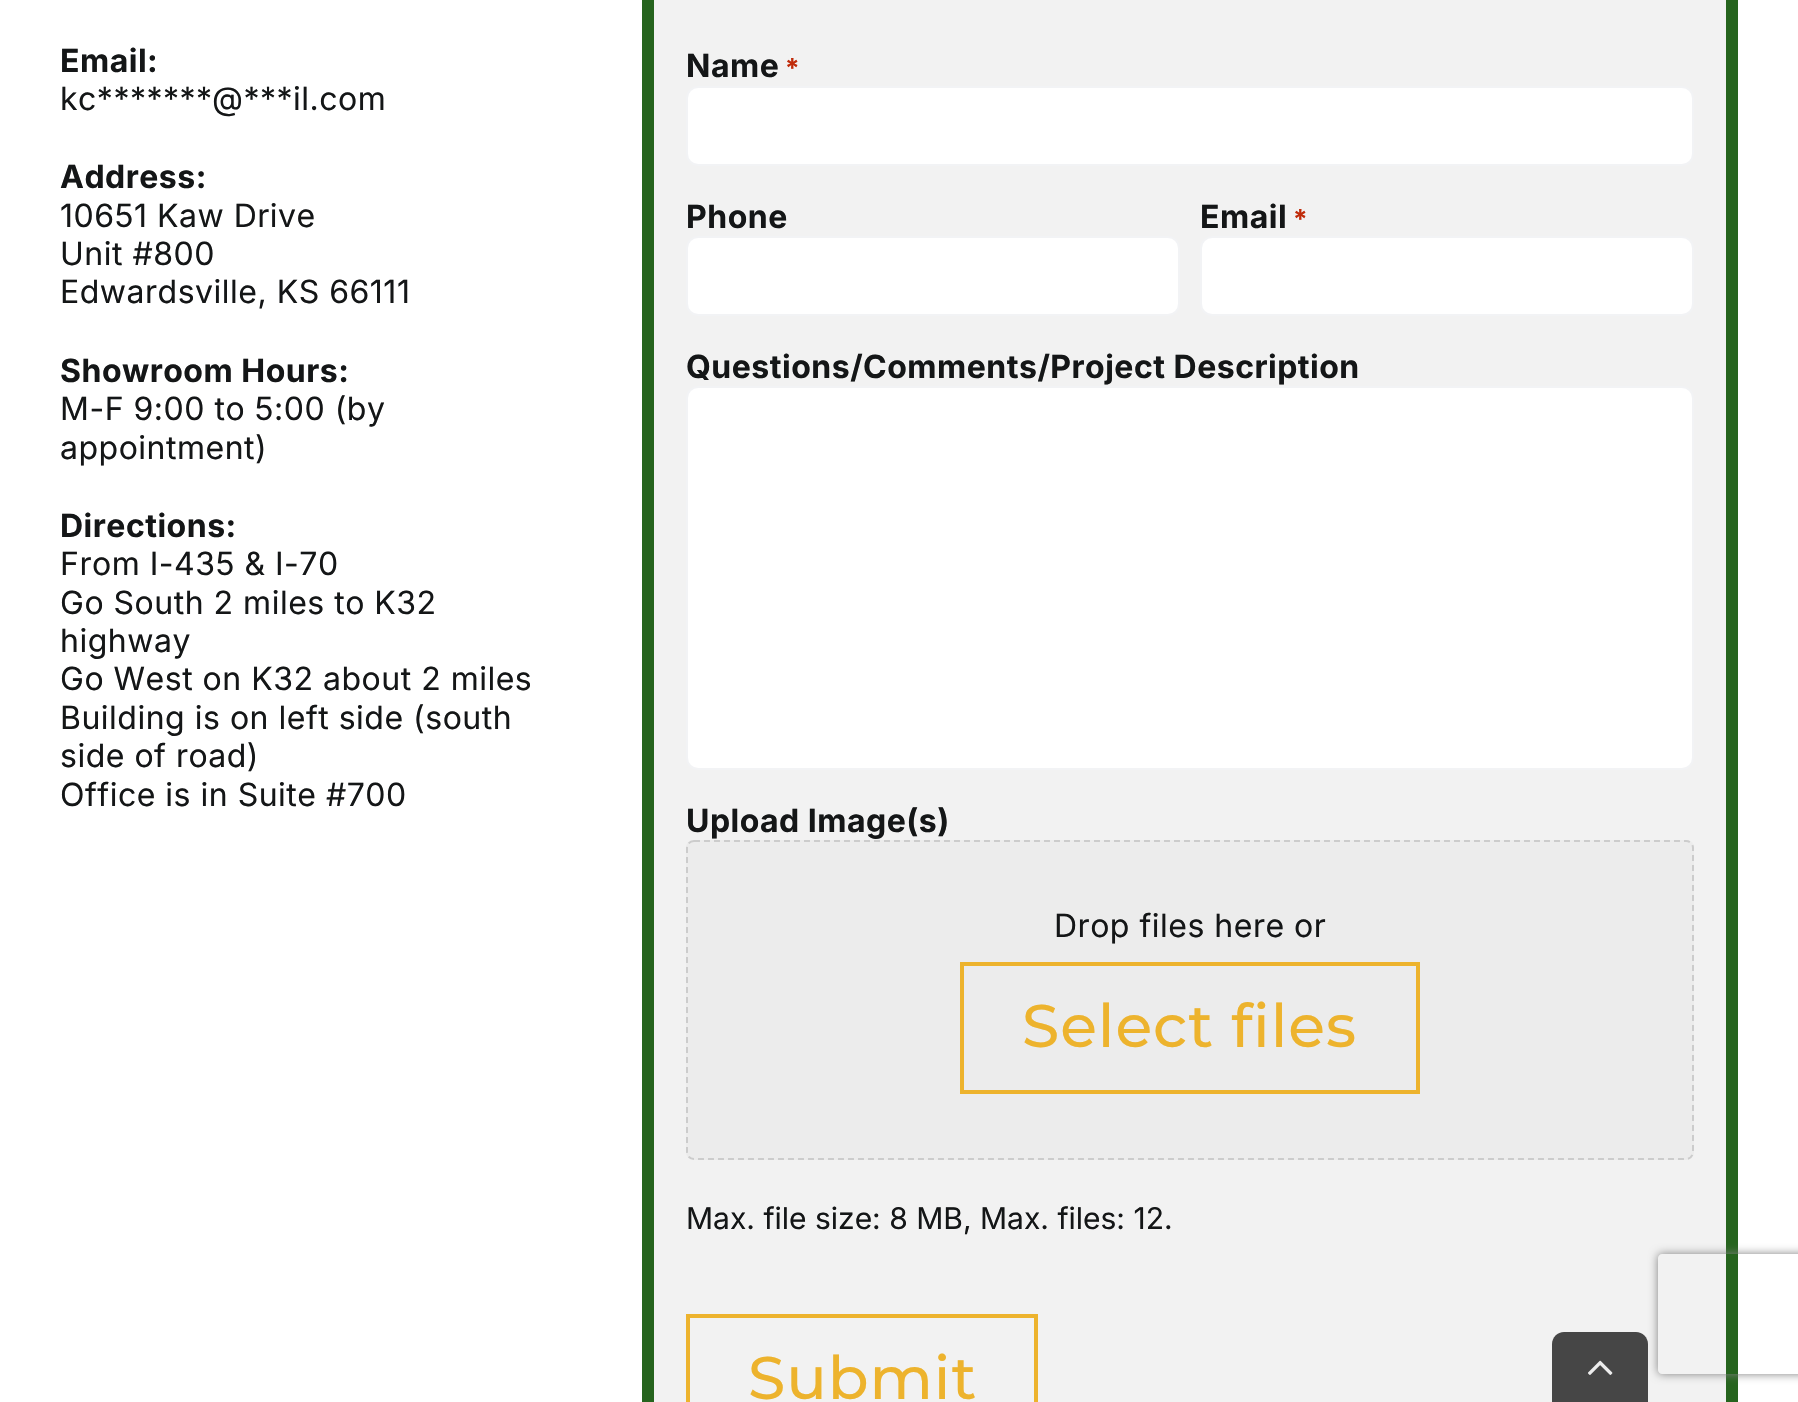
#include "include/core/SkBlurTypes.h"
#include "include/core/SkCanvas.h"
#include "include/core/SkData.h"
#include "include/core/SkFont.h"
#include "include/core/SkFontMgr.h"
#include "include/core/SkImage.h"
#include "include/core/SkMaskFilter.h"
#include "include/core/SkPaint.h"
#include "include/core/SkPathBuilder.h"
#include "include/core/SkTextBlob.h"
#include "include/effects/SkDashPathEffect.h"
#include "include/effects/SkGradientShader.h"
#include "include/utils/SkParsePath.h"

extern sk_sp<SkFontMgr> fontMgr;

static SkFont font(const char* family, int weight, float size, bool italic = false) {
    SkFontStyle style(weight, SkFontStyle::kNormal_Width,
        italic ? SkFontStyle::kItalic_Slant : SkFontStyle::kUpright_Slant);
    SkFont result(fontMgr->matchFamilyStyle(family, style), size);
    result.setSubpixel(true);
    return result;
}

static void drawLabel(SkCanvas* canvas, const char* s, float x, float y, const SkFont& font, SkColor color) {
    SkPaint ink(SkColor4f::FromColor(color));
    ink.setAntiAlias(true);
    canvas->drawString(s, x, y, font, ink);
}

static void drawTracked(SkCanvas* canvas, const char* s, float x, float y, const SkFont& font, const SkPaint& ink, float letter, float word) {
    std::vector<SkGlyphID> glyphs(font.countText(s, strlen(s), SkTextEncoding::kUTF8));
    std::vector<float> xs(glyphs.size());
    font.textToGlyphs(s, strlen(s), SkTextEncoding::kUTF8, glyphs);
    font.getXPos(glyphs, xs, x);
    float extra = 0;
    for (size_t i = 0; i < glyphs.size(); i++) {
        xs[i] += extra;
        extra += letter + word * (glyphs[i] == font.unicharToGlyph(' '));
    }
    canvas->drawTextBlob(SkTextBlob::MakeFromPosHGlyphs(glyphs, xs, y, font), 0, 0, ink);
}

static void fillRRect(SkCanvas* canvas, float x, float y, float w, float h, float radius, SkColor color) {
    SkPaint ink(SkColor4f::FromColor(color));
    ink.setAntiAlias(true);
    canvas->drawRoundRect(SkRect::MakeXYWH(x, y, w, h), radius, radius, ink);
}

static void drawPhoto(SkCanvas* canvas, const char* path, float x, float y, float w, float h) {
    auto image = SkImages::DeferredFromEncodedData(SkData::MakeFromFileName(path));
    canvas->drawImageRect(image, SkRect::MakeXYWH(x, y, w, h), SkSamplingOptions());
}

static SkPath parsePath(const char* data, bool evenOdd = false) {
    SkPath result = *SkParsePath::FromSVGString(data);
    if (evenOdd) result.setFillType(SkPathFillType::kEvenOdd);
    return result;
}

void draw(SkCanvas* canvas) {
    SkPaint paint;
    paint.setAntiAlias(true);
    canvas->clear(0xFFFFFFFF);
    SkFont font1 = font("Inter", 700, 32);
    paint.setColor(0xFF141617);
    drawTracked(canvas, "Email:", 60, 72, font1, paint, 0.5f, 0);
    SkFont font2 = font("Inter", 400, 32);
    drawTracked(canvas, "kc*******", 60, 110, font2, paint, 0.5f, 0);
    drawTracked(canvas, "@***", 212, 110, font2, paint, 0.5f, 0);
    drawTracked(canvas, "il.com", 293, 110, font2, paint, 0.5f, 0);
    drawTracked(canvas, "Address:", 60, 188, font1, paint, 0.5f, 0);
    drawTracked(canvas, "10651 Kaw Drive", 60, 227, font2, paint, 0.5f, 0);
    drawTracked(canvas, "Unit #800", 60, 265, font2, paint, 0.5f, 0);
    drawTracked(canvas, "Edwardsville, KS 66111", 60, 303, font2, paint, 0.5f, 0);
    drawTracked(canvas, "Showroom Hours:", 60, 382, font1, paint, 0.5f, 0);
    drawTracked(canvas, "M-F 9:00 to 5:00 (by", 60, 420, font2, paint, 0.5f, 0);
    drawTracked(canvas, "appointment)", 60, 459, font2, paint, 0.5f, 0);
    drawTracked(canvas, "Directions:", 60, 537, font1, paint, 0.5f, 0);
    drawTracked(canvas, "From I-435 & I-70", 60, 575, font2, paint, 0.5f, 0);
    drawTracked(canvas, "Go South 2 miles to K32", 60, 614, font2, paint, 0.5f, 0);
    drawTracked(canvas, "highway", 60, 652, font2, paint, 0.5f, 0);
    drawTracked(canvas, "Go West on K32 about 2 miles", 60, 690, font2, paint, 0.5f, 0);
    drawTracked(canvas, "Building is on left side (south", 60, 729, font2, paint, 0.5f, 0);
    drawTracked(canvas, "side of road)", 60, 767, font2, paint, 0.5f, 0);
    drawTracked(canvas, "Office is in Suite #700", 60, 806, font2, paint, 0.5f, 0);
    paint.setColor(0xFFF2F2F2);
    canvas->drawRect(SkRect::MakeXYWH(648, -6, 1084, 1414), paint);
    paint.setStroke(true);
    paint.setStrokeWidth(12);
    paint.setColor(0xFF26641E);
    canvas->drawRect(SkRect::MakeXYWH(648, -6, 1084, 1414), paint);
    paint.setStroke(false);
    paint.setColor(0xFF141617);
    drawTracked(canvas, "Name", 686, 77, font1, paint, 0.5f, 0);
    SkFont font3 = font("Inter", 700, 26);
    paint.setColor(0xFFC02B0A);
    drawTracked(canvas, "*", 785, 77, font3, paint, 0.5f, 0);
    paint.setColor(0xFFFFFFFF);
    canvas->drawRoundRect(SkRect::MakeXYWH(687, 87, 1006, 78), 11, 11, paint);
    paint.setStroke(true);
    paint.setStrokeWidth(2);
    paint.setColor(0xFFF2F3F5);
    canvas->drawRoundRect(SkRect::MakeXYWH(687, 87, 1006, 78), 11, 11, paint);
    paint.setStroke(false);
    paint.setColor(0xFF141617);
    drawTracked(canvas, "Phone", 686, 228, font1, paint, 0.5f, 0);
    paint.setColor(0xFFFFFFFF);
    canvas->drawRoundRect(SkRect::MakeXYWH(687, 237, 492, 78), 11, 11, paint);
    paint.setStroke(true);
    paint.setColor(0xFFF2F3F5);
    canvas->drawRoundRect(SkRect::MakeXYWH(687, 237, 492, 78), 11, 11, paint);
    paint.setStroke(false);
    paint.setColor(0xFF141617);
    drawTracked(canvas, "Email", 1200, 228, font1, paint, 0.5f, 0);
    paint.setColor(0xFFC02B0A);
    drawTracked(canvas, "*", 1293, 228, font3, paint, 0.5f, 0);
    paint.setColor(0xFFFFFFFF);
    canvas->drawRoundRect(SkRect::MakeXYWH(1201, 237, 492, 78), 11, 11, paint);
    paint.setStroke(true);
    paint.setColor(0xFFF2F3F5);
    canvas->drawRoundRect(SkRect::MakeXYWH(1201, 237, 492, 78), 11, 11, paint);
    paint.setStroke(false);
    paint.setColor(0xFF141617);
    drawTracked(canvas, "Questions/Comments/Project Description", 686, 378, font1, paint, 0.5f, 0);
    paint.setColor(0xFFFFFFFF);
    canvas->drawRoundRect(SkRect::MakeXYWH(687, 387, 1006, 382), 11, 11, paint);
    paint.setStroke(true);
    paint.setColor(0xFFF2F3F5);
    canvas->drawRoundRect(SkRect::MakeXYWH(687, 387, 1006, 382), 11, 11, paint);
    paint.setStroke(false);
    paint.setColor(0xFF141617);
    drawTracked(canvas, "Upload Image(s)", 686, 832, font1, paint, 0.5f, 0);
    fillRRect(canvas, 686, 840, 1008, 320, 8, 0xFFECECEC);
    paint.setStroke(true);
    paint.setColor(0xFFCCCCCC);
    paint.setPathEffect(SkDashPathEffect::Make({{6, 4}}, 0));
    canvas->drawPath(parsePath("M694 841H1686C1690 841 1693 844 1693 848V1152C1693 1156 1690 1159 1686 1159H694C690 1159 687 1156 687 1152V848C687 844 690 841 694 841Z"), paint);
    paint.setPathEffect(nullptr);
    paint.setStroke(false);
    paint.setColor(0xFF141617);
    drawTracked(canvas, "Drop files here or", 1054, 937, font2, paint, 0.5f, 0);
    paint.setStroke(true);
    paint.setStrokeWidth(4);
    paint.setColor(0xFFEDB32D);
    canvas->drawRect(SkRect::MakeXYWH(962, 964, 456, 128), paint);
    SkFont font4 = font("Montserrat", 500, 60);
    paint.setStroke(false);
    drawTracked(canvas, "Select files", 1022, 1047, font4, paint, 0.9f, 0);
    SkFont font5 = font("Inter", 400, 30);
    drawLabel(canvas, "Max. file size: 8 MB, Max. files: 12.", 686, 1229, font5, 0xFF141617);
    canvas->save();
    canvas->clipPath(parsePath("M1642 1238H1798V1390H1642ZM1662 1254H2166C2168 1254 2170 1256 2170 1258V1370C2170 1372 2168 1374 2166 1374H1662C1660 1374 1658 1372 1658 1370V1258C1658 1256 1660 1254 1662 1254Z", true), true);
    paint.setColor(0xFF808080);
    paint.setMaskFilter(SkMaskFilter::MakeBlur(kNormal_SkBlurStyle, 5));
    canvas->drawRoundRect(SkRect::MakeXYWH(1658, 1254, 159, 120), 4, 4, paint);
    paint.setMaskFilter(nullptr);
    canvas->restore();
    paint.setStroke(true);
    paint.setColor(0xFFEDB32D);
    canvas->drawRect(SkRect::MakeXYWH(688, 1316, 348, 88), paint);
    paint.setStroke(false);
    drawTracked(canvas, "Submit", 748, 1399, font4, paint, 0.9f, 0);
    paint.setColor(0xFF464646);
    canvas->drawPath(parsePath("M1564 1332H1636C1642.5 1332 1648 1337.5 1648 1344V1402H1552V1344C1552 1337.5 1557.5 1332 1564 1332Z"), paint);
    drawPhoto(canvas, "assets/img1.png", 1588, 1360, 25, 15);
}
